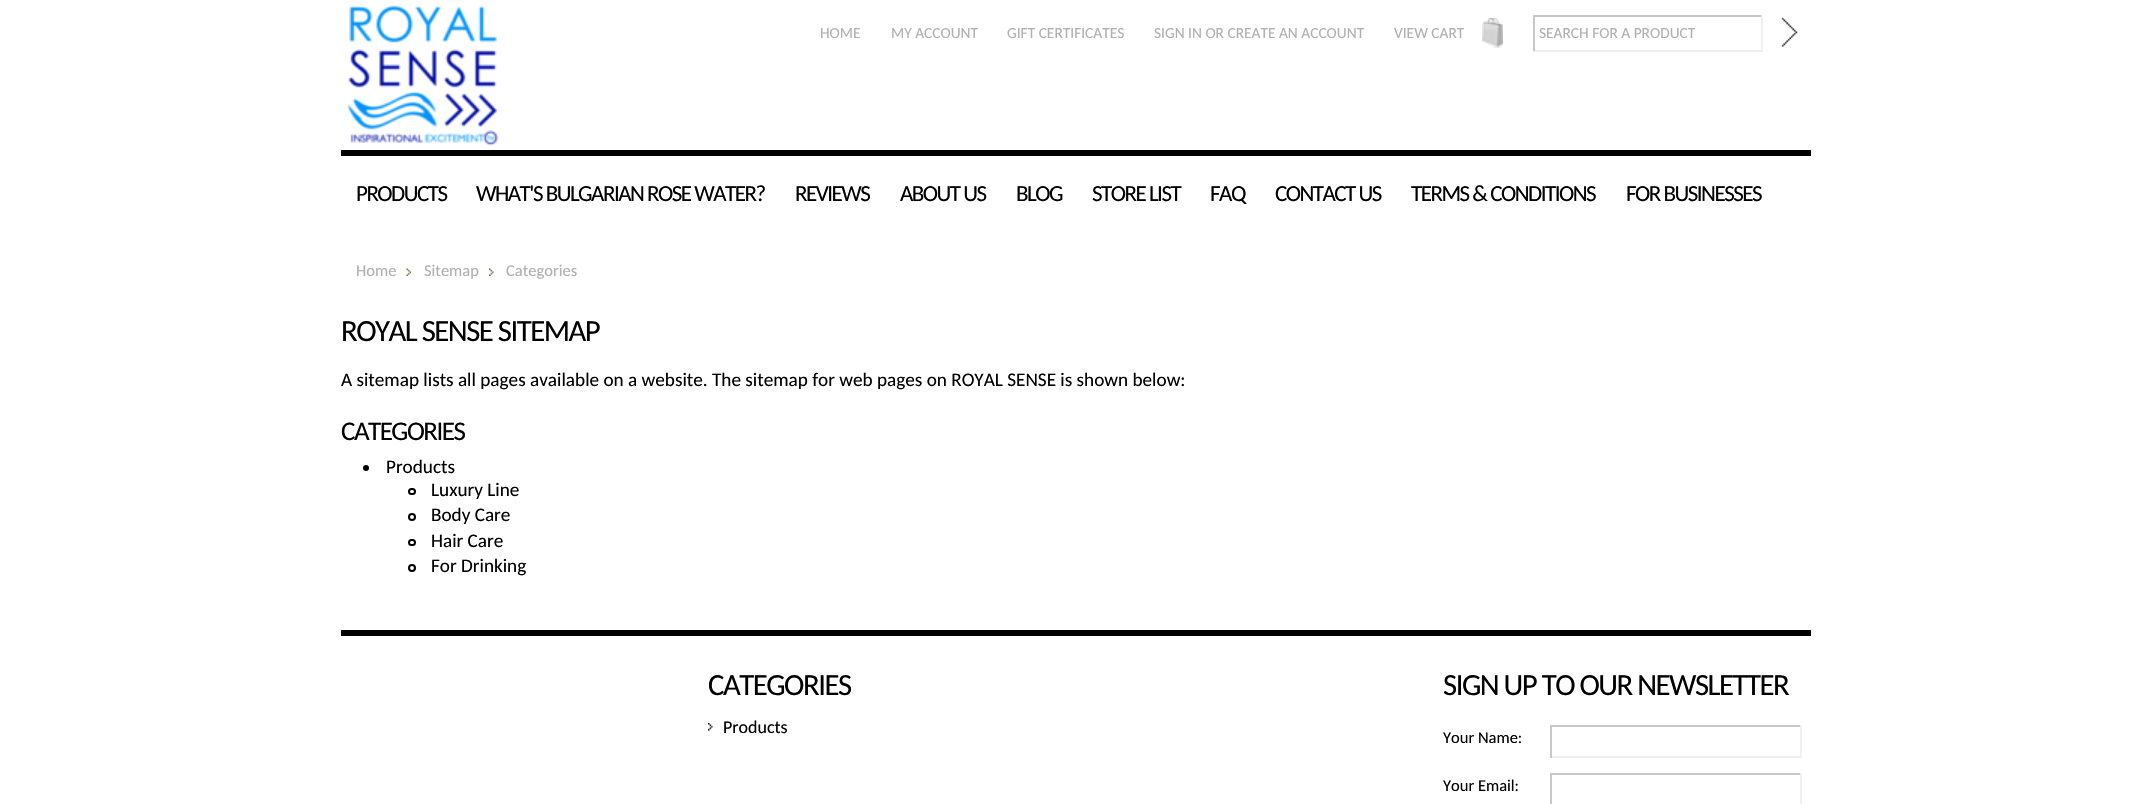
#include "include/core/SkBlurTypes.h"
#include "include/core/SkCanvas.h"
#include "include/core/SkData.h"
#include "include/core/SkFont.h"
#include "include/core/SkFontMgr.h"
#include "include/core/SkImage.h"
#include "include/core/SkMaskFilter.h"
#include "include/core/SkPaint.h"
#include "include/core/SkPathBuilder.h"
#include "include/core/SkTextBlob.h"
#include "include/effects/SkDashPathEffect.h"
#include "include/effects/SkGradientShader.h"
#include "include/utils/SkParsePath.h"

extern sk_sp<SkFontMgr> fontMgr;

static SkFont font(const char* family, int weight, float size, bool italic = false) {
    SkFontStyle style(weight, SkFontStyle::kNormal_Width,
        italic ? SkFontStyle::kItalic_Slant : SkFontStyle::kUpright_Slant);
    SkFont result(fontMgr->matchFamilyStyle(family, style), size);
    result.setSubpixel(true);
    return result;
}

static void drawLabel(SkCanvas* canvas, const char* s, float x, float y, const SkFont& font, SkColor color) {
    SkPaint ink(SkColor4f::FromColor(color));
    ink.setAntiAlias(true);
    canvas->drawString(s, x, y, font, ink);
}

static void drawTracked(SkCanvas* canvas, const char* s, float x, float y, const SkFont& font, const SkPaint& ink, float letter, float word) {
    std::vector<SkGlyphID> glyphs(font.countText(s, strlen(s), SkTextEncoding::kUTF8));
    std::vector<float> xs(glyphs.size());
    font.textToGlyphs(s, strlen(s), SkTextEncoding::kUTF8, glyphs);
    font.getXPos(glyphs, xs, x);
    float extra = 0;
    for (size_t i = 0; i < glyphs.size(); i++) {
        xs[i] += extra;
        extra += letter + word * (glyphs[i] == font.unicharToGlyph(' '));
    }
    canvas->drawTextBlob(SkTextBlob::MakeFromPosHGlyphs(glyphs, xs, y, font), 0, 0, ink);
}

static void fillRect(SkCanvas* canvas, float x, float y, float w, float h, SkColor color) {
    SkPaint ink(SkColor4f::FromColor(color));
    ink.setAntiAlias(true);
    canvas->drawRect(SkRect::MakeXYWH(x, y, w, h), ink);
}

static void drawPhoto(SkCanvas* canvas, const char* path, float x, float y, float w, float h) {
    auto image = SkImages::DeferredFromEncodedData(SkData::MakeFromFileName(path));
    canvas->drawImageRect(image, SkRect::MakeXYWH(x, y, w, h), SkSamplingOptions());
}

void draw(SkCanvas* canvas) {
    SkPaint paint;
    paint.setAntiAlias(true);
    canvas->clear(0xFFFFFFFF);
    drawPhoto(canvas, "assets/img1.png", 347, 5, 152, 141);
    SkFont font1 = font("Carlito", 400, 15.4f);
    drawLabel(canvas, "HOME", 820, 38, font1, 0xFFB0B0B0);
    drawLabel(canvas, "MY ACCOUNT", 891, 38, font1, 0xFFB0B0B0);
    drawLabel(canvas, "GIFT CERTIFICATES", 1007, 38, font1, 0xFFB0B0B0);
    drawLabel(canvas, "SIGN IN OR CREATE AN ACCOUNT", 1154, 38, font1, 0xFFB0B0B0);
    drawPhoto(canvas, "assets/img2.png", 1482, 18, 21, 30);
    drawLabel(canvas, "VIEW CART", 1394, 38, font1, 0xFFB0B0B0);
    fillRect(canvas, 1533, 15, 230, 2, 0xFFC8C8C8);
    fillRect(canvas, 1761, 15, 2, 36, 0xFFF0F0F0);
    fillRect(canvas, 1533, 50, 230, 2, 0xFFF0F0F0);
    fillRect(canvas, 1533, 15, 2, 36, 0xFFC8C8C8);
    drawLabel(canvas, "SEARCH FOR A PRODUCT", 1539, 38, font1, 0xFFB0B0B0);
    drawPhoto(canvas, "assets/img3.png", 1781, 17, 17, 30);
    fillRect(canvas, 341, 150, 1470, 6, 0xFF000000);
    SkFont font2 = font("Carlito", 400, 23);
    paint.setColor(0xFF000000);
    drawTracked(canvas, "PRODUCTS", 356, 201, font2, paint, -1.5f, 0);
    drawTracked(canvas, "WHAT'S BULGARIAN ROSE WATER?", 476, 201, font2, paint, -1.5f, 0);
    drawTracked(canvas, "REVIEWS", 795, 201, font2, paint, -1.5f, 0);
    drawTracked(canvas, "ABOUT US", 900, 201, font2, paint, -1.5f, 0);
    drawTracked(canvas, "BLOG", 1016, 201, font2, paint, -1.5f, 0);
    drawTracked(canvas, "STORE LIST", 1092, 201, font2, paint, -1.5f, 0);
    drawTracked(canvas, "FAQ", 1210, 201, font2, paint, -1.5f, 0);
    drawTracked(canvas, "CONTACT US", 1275, 201, font2, paint, -1.5f, 0);
    drawTracked(canvas, "TERMS & CONDITIONS", 1411, 201, font2, paint, -1.5f, 0);
    drawTracked(canvas, "FOR BUSINESSES", 1626, 201, font2, paint, -1.5f, 0);
    SkFont font3 = font("Carlito", 400, 16.5f);
    drawLabel(canvas, "Home", 356, 276, font3, 0xFFB0B0B0);
    drawPhoto(canvas, "assets/img4.png", 406, 268, 5, 8);
    drawLabel(canvas, "Sitemap", 424, 276, font3, 0xFFB0B0B0);
    drawPhoto(canvas, "assets/img5.png", 489, 268, 5, 8);
    drawLabel(canvas, "Categories", 506, 276, font3, 0xFFB0B0B0);
    SkFont font4 = font("Carlito", 400, 30.75f);
    drawTracked(canvas, "ROYAL SENSE SITEMAP", 341, 341, font4, paint, -1.5f, 0);
    SkFont font5 = font("Carlito", 400, 19.2f);
    drawLabel(canvas, "A sitemap lists all pages available on a website. The sitemap for web pages on ROYAL SENSE is shown below:", 341, 386, font5, 0xFF000000);
    SkFont font6 = font("Carlito", 400, 27);
    drawTracked(canvas, "CATEGORIES", 341, 440, font6, paint, -1.5f, 0);
    canvas->drawCircle(366, 468, 3, paint);
    drawLabel(canvas, "Products", 386, 473, font5, 0xFF000000);
    paint.setStroke(true);
    paint.setStrokeWidth(2);
    canvas->drawRoundRect(SkRect::MakeXYWH(409, 489, 6, 5), 2.5f, 2.5f, paint);
    drawLabel(canvas, "Luxury Line", 431, 496, font5, 0xFF000000);
    canvas->drawCircle(412, 517, 3, paint);
    drawLabel(canvas, "Body Care", 431, 521, font5, 0xFF000000);
    canvas->drawRoundRect(SkRect::MakeXYWH(409, 540, 6, 5), 2.5f, 2.5f, paint);
    drawLabel(canvas, "Hair Care", 431, 547, font5, 0xFF000000);
    canvas->drawCircle(412, 568, 3, paint);
    drawLabel(canvas, "For Drinking", 431, 572, font5, 0xFF000000);
    fillRect(canvas, 341, 630, 1470, 6, 0xFF000000);
    paint.setStroke(false);
    drawTracked(canvas, "CATEGORIES", 708, 695, font4, paint, -1.5f, 0);
    drawPhoto(canvas, "assets/img6.png", 708, 723, 5, 8);
    SkFont font7 = font("Carlito", 400, 18);
    drawLabel(canvas, "Products", 723, 733, font7, 0xFF000000);
    drawTracked(canvas, "SIGN UP TO OUR NEWSLETTER", 1443, 695, font4, paint, -1.5f, 0);
    drawLabel(canvas, "Your Name:", 1443, 743, font3, 0xFF000000);
    fillRect(canvas, 1550, 725, 252, 2, 0xFFC8C8C8);
    fillRect(canvas, 1800, 725, 2, 33, 0xFFF0F0F0);
    fillRect(canvas, 1550, 756, 252, 2, 0xFFF0F0F0);
    fillRect(canvas, 1550, 725, 2, 33, 0xFFC8C8C8);
    drawLabel(canvas, "Your Email:", 1443, 791, font3, 0xFF000000);
    fillRect(canvas, 1550, 773, 252, 2, 0xFFC8C8C8);
    fillRect(canvas, 1800, 773, 2, 31, 0xFFF0F0F0);
    fillRect(canvas, 1550, 773, 2, 31, 0xFFC8C8C8);
}
